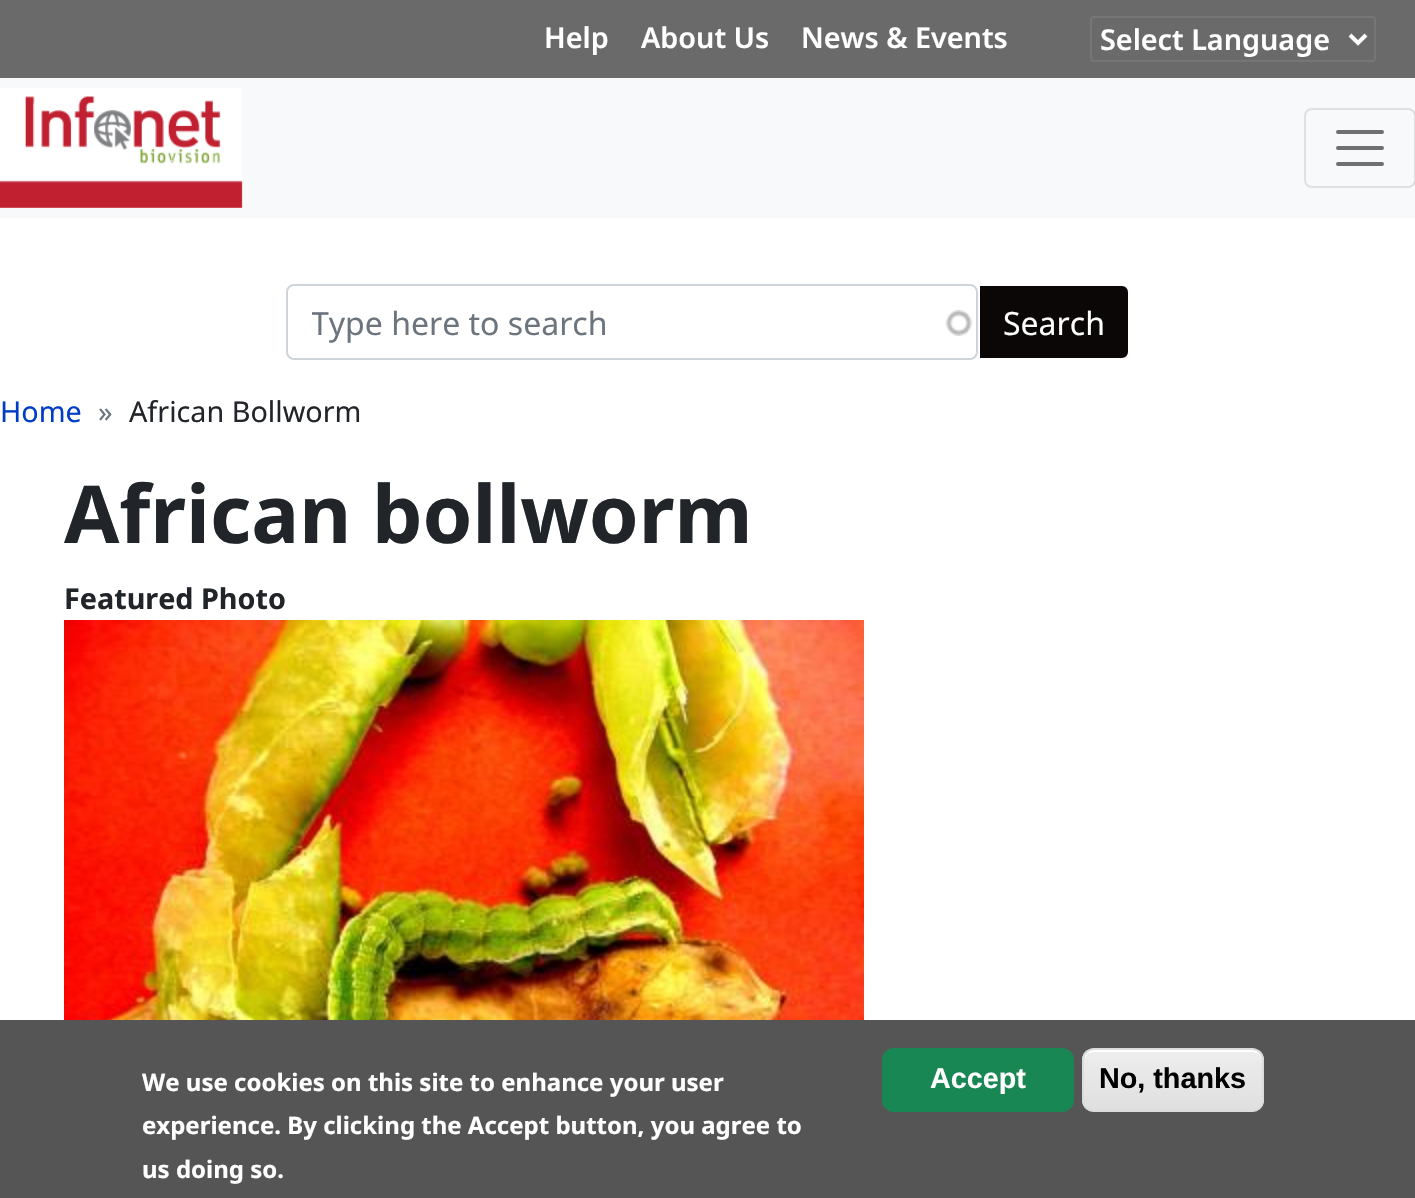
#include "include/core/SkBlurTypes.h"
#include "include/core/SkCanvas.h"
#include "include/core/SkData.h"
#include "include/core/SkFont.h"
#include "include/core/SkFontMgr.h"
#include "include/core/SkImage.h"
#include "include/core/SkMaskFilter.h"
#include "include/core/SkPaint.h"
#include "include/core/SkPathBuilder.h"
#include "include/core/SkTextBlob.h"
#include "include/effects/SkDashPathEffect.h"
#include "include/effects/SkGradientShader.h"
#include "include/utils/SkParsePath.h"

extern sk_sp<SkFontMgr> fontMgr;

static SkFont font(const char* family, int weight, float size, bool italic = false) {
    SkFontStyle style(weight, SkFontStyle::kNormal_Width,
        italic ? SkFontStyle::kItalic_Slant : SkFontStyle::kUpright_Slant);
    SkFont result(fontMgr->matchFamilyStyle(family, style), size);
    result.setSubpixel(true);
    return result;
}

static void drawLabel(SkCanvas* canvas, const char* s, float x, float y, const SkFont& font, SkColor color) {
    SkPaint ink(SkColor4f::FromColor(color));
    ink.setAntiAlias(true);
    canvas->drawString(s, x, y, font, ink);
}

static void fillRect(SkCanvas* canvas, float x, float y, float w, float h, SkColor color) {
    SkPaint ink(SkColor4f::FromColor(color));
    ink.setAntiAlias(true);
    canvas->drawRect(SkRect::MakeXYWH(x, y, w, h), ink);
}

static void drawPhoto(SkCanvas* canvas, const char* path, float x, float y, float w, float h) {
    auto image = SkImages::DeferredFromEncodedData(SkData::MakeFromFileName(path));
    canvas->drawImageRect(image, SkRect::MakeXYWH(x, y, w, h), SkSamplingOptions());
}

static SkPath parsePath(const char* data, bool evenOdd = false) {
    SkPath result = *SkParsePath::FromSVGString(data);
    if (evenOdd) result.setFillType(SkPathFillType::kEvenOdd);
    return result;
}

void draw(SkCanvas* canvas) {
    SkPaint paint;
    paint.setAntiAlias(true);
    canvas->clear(0xFFFFFFFF);
    fillRect(canvas, 0, 0, 1415, 78, 0xFF6A6A6A);
    SkFont font1 = font("Noto Sans", 600, 28.75f);
    drawLabel(canvas, "Help", 544, 48, font1, 0xFFFFFFFF);
    drawLabel(canvas, "About Us", 641, 48, font1, 0xFFFFFFFF);
    drawLabel(canvas, "News & Events", 801, 48, font1, 0xFFFFFFFF);
    paint.setStroke(true);
    paint.setStrokeWidth(2);
    paint.setColor(0xFF767676);
    canvas->drawRoundRect(SkRect::MakeXYWH(1091, 17, 284, 44), 3, 3, paint);
    paint.setStrokeWidth(4);
    paint.setColor(0xFFFFFFFF);
    canvas->drawPath(parsePath("M1350 35L1358 43L1366 35"), paint);
    drawLabel(canvas, "Select Language", 1100, 50, font1, 0xFFFFFFFF);
    fillRect(canvas, 0, 78, 1415, 140, 0xFFF8F9FA);
    drawPhoto(canvas, "assets/img1.png", 0, 88, 243, 120);
    paint.setStrokeWidth(2);
    paint.setColor(0xFFDFE0E1);
    canvas->drawRoundRect(SkRect::MakeXYWH(1305, 109, 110, 78), 7, 7, paint);
    paint.setStrokeWidth(4);
    paint.setStrokeCap(SkPaint::kRound_Cap);
    paint.setColor(0xFF707071);
    canvas->drawPath(parsePath("M1338 132H1382M1338 148H1382M1338 164H1382"), paint);
    drawPhoto(canvas, "assets/img2.png", 945, 310, 28, 26);
    paint.setStrokeWidth(2);
    paint.setStrokeCap(SkPaint::kButt_Cap);
    paint.setColor(0xFFCED4DA);
    canvas->drawRoundRect(SkRect::MakeXYWH(287, 285, 690, 74), 7, 7, paint);
    canvas->save();
    canvas->clipRect(SkRect::MakeXYWH(312, 300, 640, 44));
    SkFont font2 = font("Noto Sans", 400, 32);
    drawLabel(canvas, "Type here to search", 311, 335, font2, 0xFF6C757D);
    canvas->restore();
    paint.setStroke(false);
    paint.setColor(0xFF0B0706);
    canvas->drawPath(parsePath("M979 285H1122C1126 285 1129 288 1129 292V352C1129 356 1126 359 1122 359H979Z"), paint);
    paint.setStroke(true);
    paint.setColor(0xFFFFFFFF);
    canvas->drawPath(parsePath("M979 285H1122C1126 285 1129 288 1129 292V352C1129 356 1126 359 1122 359H979Z"), paint);
    drawLabel(canvas, "Search", 1003, 335, font2, 0xFFFFFFFF);
    SkFont font3 = font("Noto Sans", 400, 28.75f);
    drawLabel(canvas, "Home", 0, 422, font3, 0xFF003CC5);
    drawLabel(canvas, "»", 98, 422, font3, 0xFF6C757D);
    drawLabel(canvas, "African Bollworm", 129, 422, font3, 0xFF212529);
    SkFont font4 = font("Noto Sans", 700, 80);
    drawLabel(canvas, "African bollworm", 64, 543, font4, 0xFF212529);
    SkFont font5 = font("Noto Sans", 700, 28.75f);
    drawLabel(canvas, "Featured Photo", 64, 609, font5, 0xFF212529);
    drawPhoto(canvas, "assets/img3.png", 64, 620, 800, 400);
    fillRect(canvas, 0, 1020, 1415, 178, 0xFF555555);
    SkFont font6 = font("Noto Sans", 700, 24);
    drawLabel(canvas, "We use cookies on this site to enhance your user", 142, 1091, font6, 0xFFFFFFFF);
    drawLabel(canvas, "experience. By clicking the Accept button, you agree to", 142, 1134, font6, 0xFFFFFFFF);
    drawLabel(canvas, "us doing so.", 142, 1178, font6, 0xFFFFFFFF);
    paint.setStroke(false);
    paint.setColor(0xFF198754);
    canvas->drawRoundRect(SkRect::MakeXYWH(883, 1049, 190, 62), 11, 11, paint);
    paint.setStroke(true);
    canvas->drawRoundRect(SkRect::MakeXYWH(883, 1049, 190, 62), 11, 11, paint);
    SkFont font7 = font("Liberation Sans", 700, 28.75f);
    drawLabel(canvas, "Accept", 930, 1088, font7, 0xFFFFFFFF);
    canvas->save();
    canvas->clipPath(parsePath("M1094 1048H1252C1258.5 1048 1264 1053.5 1264 1060V1100C1264 1106.5 1258.5 1112 1252 1112H1094C1087.5 1112 1082 1106.5 1082 1100V1060C1082 1053.5 1087.5 1048 1094 1048Z"), true);
    paint.setStroke(false);
    {
        const SkColor colors[] = {0xFFEDEDED, 0xFFDFDFDF};
        const float stops[] = {0.05f, 1};
        const SkPoint ends[] = {{1173, 1050}, {1173, 1110}};
        paint.setShader(SkGradientShader::MakeLinear(ends, colors, stops, 2, SkTileMode::kClamp));
        paint.setAlpha(255);
    }
    canvas->drawRect(SkRect::MakeXYWH(1082, 1050, 182, 60), paint);
    canvas->restore();
    paint.setShader(nullptr);
    paint.setColor(0xFFFFFFFF);
    canvas->drawPath(parsePath("M1094 1052H1252C1258 1052 1262 1056 1262 1062V1060C1262 1054 1258 1050 1252 1050H1094C1088 1050 1084 1054 1084 1060V1062C1084 1056 1088 1052 1094 1052Z"), paint);
    paint.setStroke(true);
    paint.setColor(0xFFDCDCDC);
    canvas->drawRoundRect(SkRect::MakeXYWH(1083, 1049, 180, 62), 11, 11, paint);
    drawLabel(canvas, "No, thanks", 1099, 1088, font7, 0xFF000000);
}
